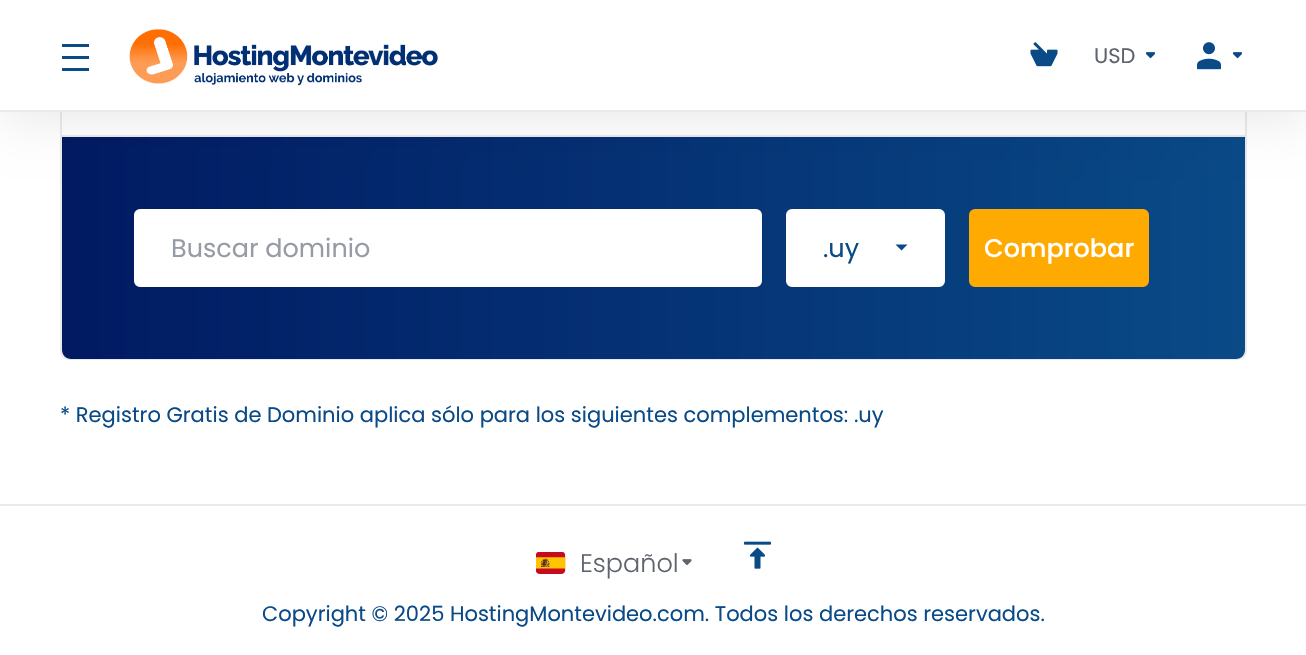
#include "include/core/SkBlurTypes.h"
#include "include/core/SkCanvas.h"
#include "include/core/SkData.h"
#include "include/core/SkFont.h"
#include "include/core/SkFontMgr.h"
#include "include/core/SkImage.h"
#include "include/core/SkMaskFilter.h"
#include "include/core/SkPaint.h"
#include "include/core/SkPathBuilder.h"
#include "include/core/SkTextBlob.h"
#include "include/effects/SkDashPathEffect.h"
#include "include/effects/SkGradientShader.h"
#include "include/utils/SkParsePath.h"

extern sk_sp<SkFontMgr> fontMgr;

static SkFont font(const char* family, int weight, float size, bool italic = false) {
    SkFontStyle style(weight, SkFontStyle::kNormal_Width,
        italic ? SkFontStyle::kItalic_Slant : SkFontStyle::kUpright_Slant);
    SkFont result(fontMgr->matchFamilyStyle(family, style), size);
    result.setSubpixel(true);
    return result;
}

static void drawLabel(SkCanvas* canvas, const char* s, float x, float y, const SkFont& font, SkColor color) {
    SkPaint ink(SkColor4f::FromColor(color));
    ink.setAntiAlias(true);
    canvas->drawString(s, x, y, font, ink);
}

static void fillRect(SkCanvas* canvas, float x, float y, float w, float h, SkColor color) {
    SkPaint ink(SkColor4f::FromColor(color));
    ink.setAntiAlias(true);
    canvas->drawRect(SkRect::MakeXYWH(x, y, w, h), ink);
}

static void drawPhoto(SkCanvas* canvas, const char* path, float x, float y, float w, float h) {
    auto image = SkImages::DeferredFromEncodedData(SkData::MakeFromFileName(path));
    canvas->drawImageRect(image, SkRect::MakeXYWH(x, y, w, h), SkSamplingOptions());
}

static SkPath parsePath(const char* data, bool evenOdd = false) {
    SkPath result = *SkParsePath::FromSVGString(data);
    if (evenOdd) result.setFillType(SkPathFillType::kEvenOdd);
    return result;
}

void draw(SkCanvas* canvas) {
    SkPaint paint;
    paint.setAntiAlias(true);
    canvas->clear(0xFFFFFFFF);
    paint.setStroke(true);
    paint.setStrokeWidth(2);
    paint.setColor(0xFFE9EAEC);
    canvas->drawRoundRect(SkRect::MakeXYWH(61, -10, 1185, 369), 8, 8, paint);
    paint.setStroke(false);
    {
        const SkColor colors[] = {0xFF011A62, 0xFF094A87};
        const float stops[] = {0, 1};
        const SkPoint ends[] = {{62, 248}, {1245, 247}};
        paint.setShader(SkGradientShader::MakeLinear(ends, colors, stops, 2, SkTileMode::kClamp));
        paint.setAlpha(255);
    }
    canvas->drawPath(parsePath("M62 135H1245V350C1245 355 1241 359 1236 359H71C66 359 62 355 62 350Z"), paint);
    fillRect(canvas, 62, 135, 1183, 2, 0xFFE9EAEC);
    paint.setShader(nullptr);
    paint.setColor(0x14000000);
    paint.setMaskFilter(SkMaskFilter::MakeBlur(kNormal_SkBlurStyle, 24));
    canvas->drawRect(SkRect::MakeXYWH(0, 12, 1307, 111), paint);
    paint.setMaskFilter(nullptr);
    fillRect(canvas, 0, 0, 1306, 110, 0xFFFFFFFF);
    fillRect(canvas, 0, 110, 1306, 2, 0xFFE9EAEC);
    fillRect(canvas, 62, 44, 27, 3, 0xFF094A87);
    fillRect(canvas, 62, 56, 27, 3, 0xFF094A87);
    fillRect(canvas, 62, 68, 27, 3, 0xFF094A87);
    drawPhoto(canvas, "assets/img1.png", 129, 29, 309, 57);
    drawPhoto(canvas, "assets/img2.png", 1030, 42, 28, 25);
    SkFont font1 = font("Poppins", 400, 21);
    drawLabel(canvas, "USD", 1094, 63, font1, 0xFF5E636E);
    drawPhoto(canvas, "assets/img3.png", 1146, 52, 9, 7);
    drawPhoto(canvas, "assets/img4.png", 1197, 42, 24, 28);
    drawPhoto(canvas, "assets/img3.png", 1233, 52, 9, 7);
    paint.setColor(0xFFFFFFFF);
    canvas->drawRoundRect(SkRect::MakeXYWH(135, 210, 626, 76), 5, 5, paint);
    paint.setStroke(true);
    canvas->drawRoundRect(SkRect::MakeXYWH(135, 210, 626, 76), 5, 5, paint);
    SkFont font2 = font("Poppins", 400, 25.5f);
    drawLabel(canvas, "Buscar dominio", 171, 257, font2, 0xFF979BA4);
    paint.setStroke(false);
    canvas->drawRoundRect(SkRect::MakeXYWH(787, 210, 157, 76), 5, 5, paint);
    paint.setStroke(true);
    canvas->drawRoundRect(SkRect::MakeXYWH(787, 210, 157, 76), 5, 5, paint);
    drawLabel(canvas, ".uy", 823, 257, font2, 0xFF094A87);
    paint.setStroke(false);
    paint.setColor(0xFF094A87);
    canvas->drawPath(parsePath("M895.5 244.5H907.5L901.5 250.5Z"), paint);
    paint.setColor(0xFFFFAA00);
    canvas->drawRoundRect(SkRect::MakeXYWH(970, 210, 178, 76), 5, 5, paint);
    paint.setStroke(true);
    canvas->drawRoundRect(SkRect::MakeXYWH(970, 210, 178, 76), 5, 5, paint);
    SkFont font3 = font("Poppins", 500, 25.5f);
    drawLabel(canvas, "Comprobar", 984, 257, font3, 0xFFFFFFFF);
    drawLabel(canvas, "* Registro Gratis de Dominio aplica sólo para los siguientes complementos: .uy", 60, 422, font1, 0xFF094A87);
    fillRect(canvas, 0, 504, 1306, 2, 0xFFE9EAEC);
    drawPhoto(canvas, "assets/img5.png", 536, 552, 30, 22);
    SkFont font4 = font("Poppins", 300, 25.5f);
    drawLabel(canvas, "Español", 580, 572, font4, 0xFF5E636E);
    drawPhoto(canvas, "assets/img6.png", 682, 559, 10, 7);
    drawPhoto(canvas, "assets/img7.png", 744, 541, 27, 28);
    drawLabel(canvas, "Copyright © 2025 HostingMontevideo.com. Todos los derechos reservados.", 262, 621, font1, 0xFF094A87);
}
